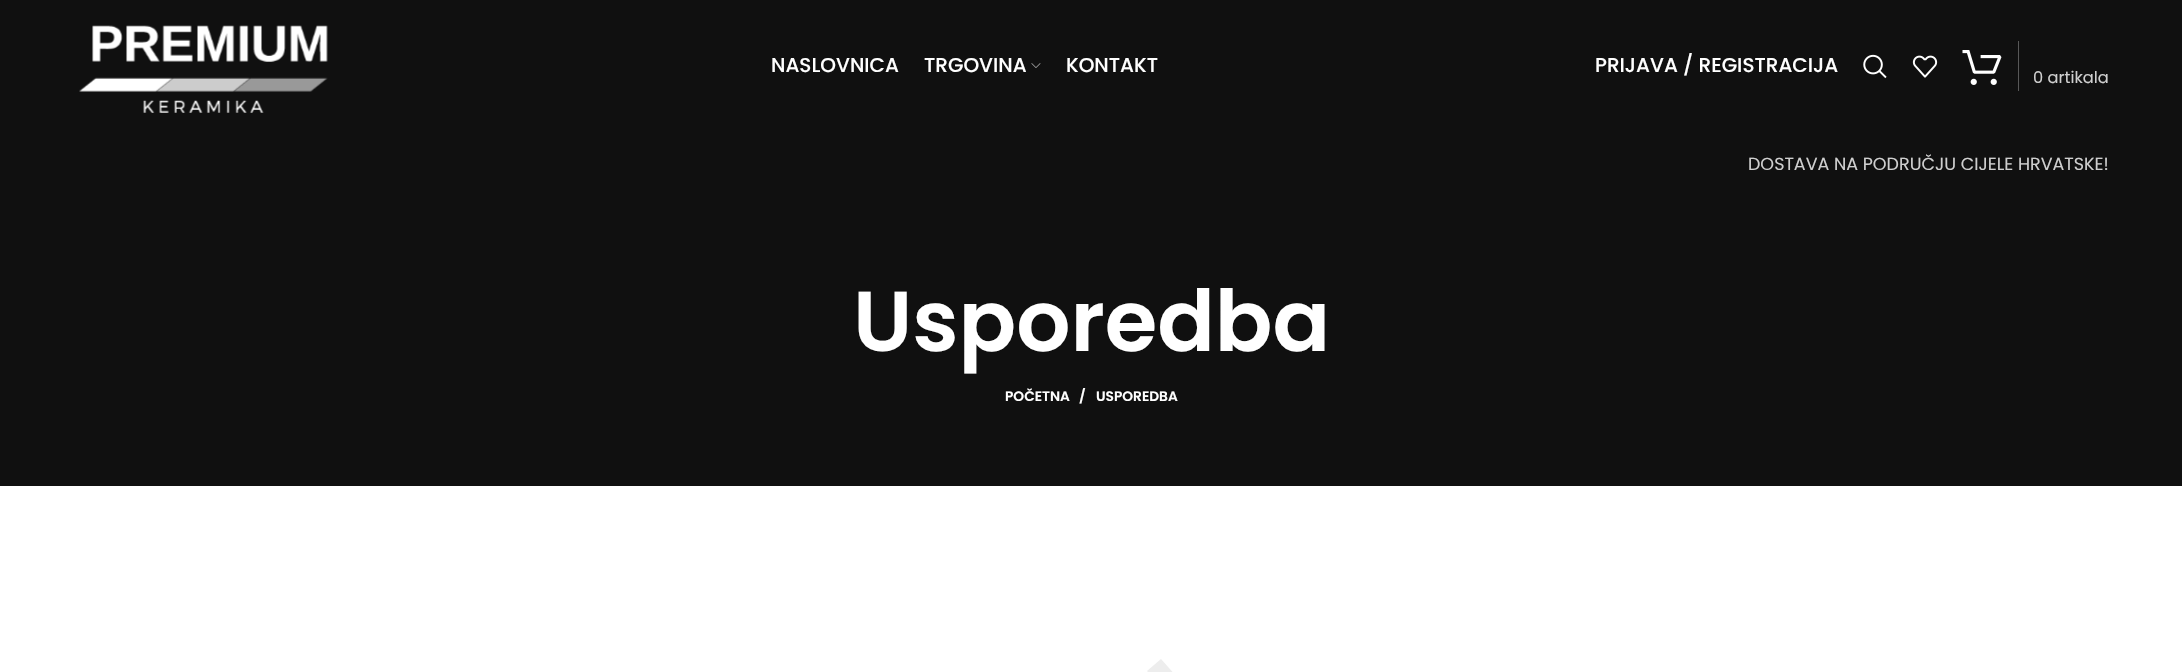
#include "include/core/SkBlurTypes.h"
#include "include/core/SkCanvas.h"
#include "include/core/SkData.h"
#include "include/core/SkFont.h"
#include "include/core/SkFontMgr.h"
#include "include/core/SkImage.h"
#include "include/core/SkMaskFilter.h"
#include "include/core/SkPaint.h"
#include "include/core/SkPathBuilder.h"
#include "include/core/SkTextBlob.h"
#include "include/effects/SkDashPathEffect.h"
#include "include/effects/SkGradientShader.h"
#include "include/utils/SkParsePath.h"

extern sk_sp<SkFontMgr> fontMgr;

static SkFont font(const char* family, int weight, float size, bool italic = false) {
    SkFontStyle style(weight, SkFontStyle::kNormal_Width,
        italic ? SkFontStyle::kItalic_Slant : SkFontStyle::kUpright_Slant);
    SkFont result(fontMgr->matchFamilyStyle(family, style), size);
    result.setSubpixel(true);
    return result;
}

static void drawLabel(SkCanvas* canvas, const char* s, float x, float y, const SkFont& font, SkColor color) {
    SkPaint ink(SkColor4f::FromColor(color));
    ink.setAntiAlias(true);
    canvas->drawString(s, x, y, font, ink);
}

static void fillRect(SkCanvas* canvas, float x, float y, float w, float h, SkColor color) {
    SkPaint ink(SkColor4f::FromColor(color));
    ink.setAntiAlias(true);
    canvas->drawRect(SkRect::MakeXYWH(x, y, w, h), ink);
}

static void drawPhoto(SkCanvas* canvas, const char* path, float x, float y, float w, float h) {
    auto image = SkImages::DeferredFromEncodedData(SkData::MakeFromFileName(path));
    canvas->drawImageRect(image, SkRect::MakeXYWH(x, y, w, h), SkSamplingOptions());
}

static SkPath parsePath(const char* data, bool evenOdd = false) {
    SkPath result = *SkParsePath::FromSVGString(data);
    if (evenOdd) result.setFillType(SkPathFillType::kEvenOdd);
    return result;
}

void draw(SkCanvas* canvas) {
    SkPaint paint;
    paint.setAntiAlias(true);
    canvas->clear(0xFFFFFFFF);
    fillRect(canvas, 0, 0, 2182, 486, 0xFF101010);
    drawPhoto(canvas, "assets/img1.png", 79, 25, 249, 88);
    SkFont font1 = font("Poppins", 500, 20);
    drawLabel(canvas, "NASLOVNICA", 771, 72, font1, 0xFFFFFFFF);
    drawLabel(canvas, "TRGOVINA", 924, 72, font1, 0xFFFFFFFF);
    drawPhoto(canvas, "assets/img2.png", 1031, 63, 10, 5);
    drawLabel(canvas, "KONTAKT", 1066, 72, font1, 0xFFFFFFFF);
    drawLabel(canvas, "PRIJAVA / REGISTRACIJA", 1595, 72, font1, 0xFFFFFFFF);
    drawPhoto(canvas, "assets/img3.png", 1863, 54, 24, 25);
    drawPhoto(canvas, "assets/img4.png", 1912, 55, 26, 23);
    drawPhoto(canvas, "assets/img5.png", 1962, 50, 40, 35);
    fillRect(canvas, 2018, 41, 1, 50, 0xFF585858);
    SkFont font2 = font("Poppins", 400, 16.25f);
    drawLabel(canvas, "0 artikala", 2033, 83, font2, 0xFFCFCFCF);
    SkFont font3 = font("Poppins", 400, 17.5f);
    drawLabel(canvas, "DOSTAVA NA PODRUČJU CIJELE HRVATSKE!", 1748, 170, font3, 0xFFCFCFCF);
    SkFont font4 = font("Poppins", 600, 85);
    drawLabel(canvas, "Usporedba", 853, 351, font4, 0xFFFFFFFF);
    SkFont font5 = font("Poppins", 600, 13.75f);
    drawLabel(canvas, "POČETNA", 1005, 401, font5, 0xFFFFFFFF);
    drawLabel(canvas, "/", 1079, 401, font5, 0xFFFFFFFF);
    drawLabel(canvas, "USPOREDBA", 1096, 401, font5, 0xFFFFFFFF);
    paint.setColor(0xFFEDEDED);
    canvas->drawPath(parsePath("M1161 659L1147 671L1169 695H1120L1089 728L1102 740L1127 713H1169L1147 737L1161 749L1201 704ZM978 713H1013L1058 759L1013 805H978V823H1020L1070 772L1120 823H1169L1147 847L1161 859L1201 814L1161 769L1147 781L1169 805H1127L1020 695H978Z"), paint);
}
